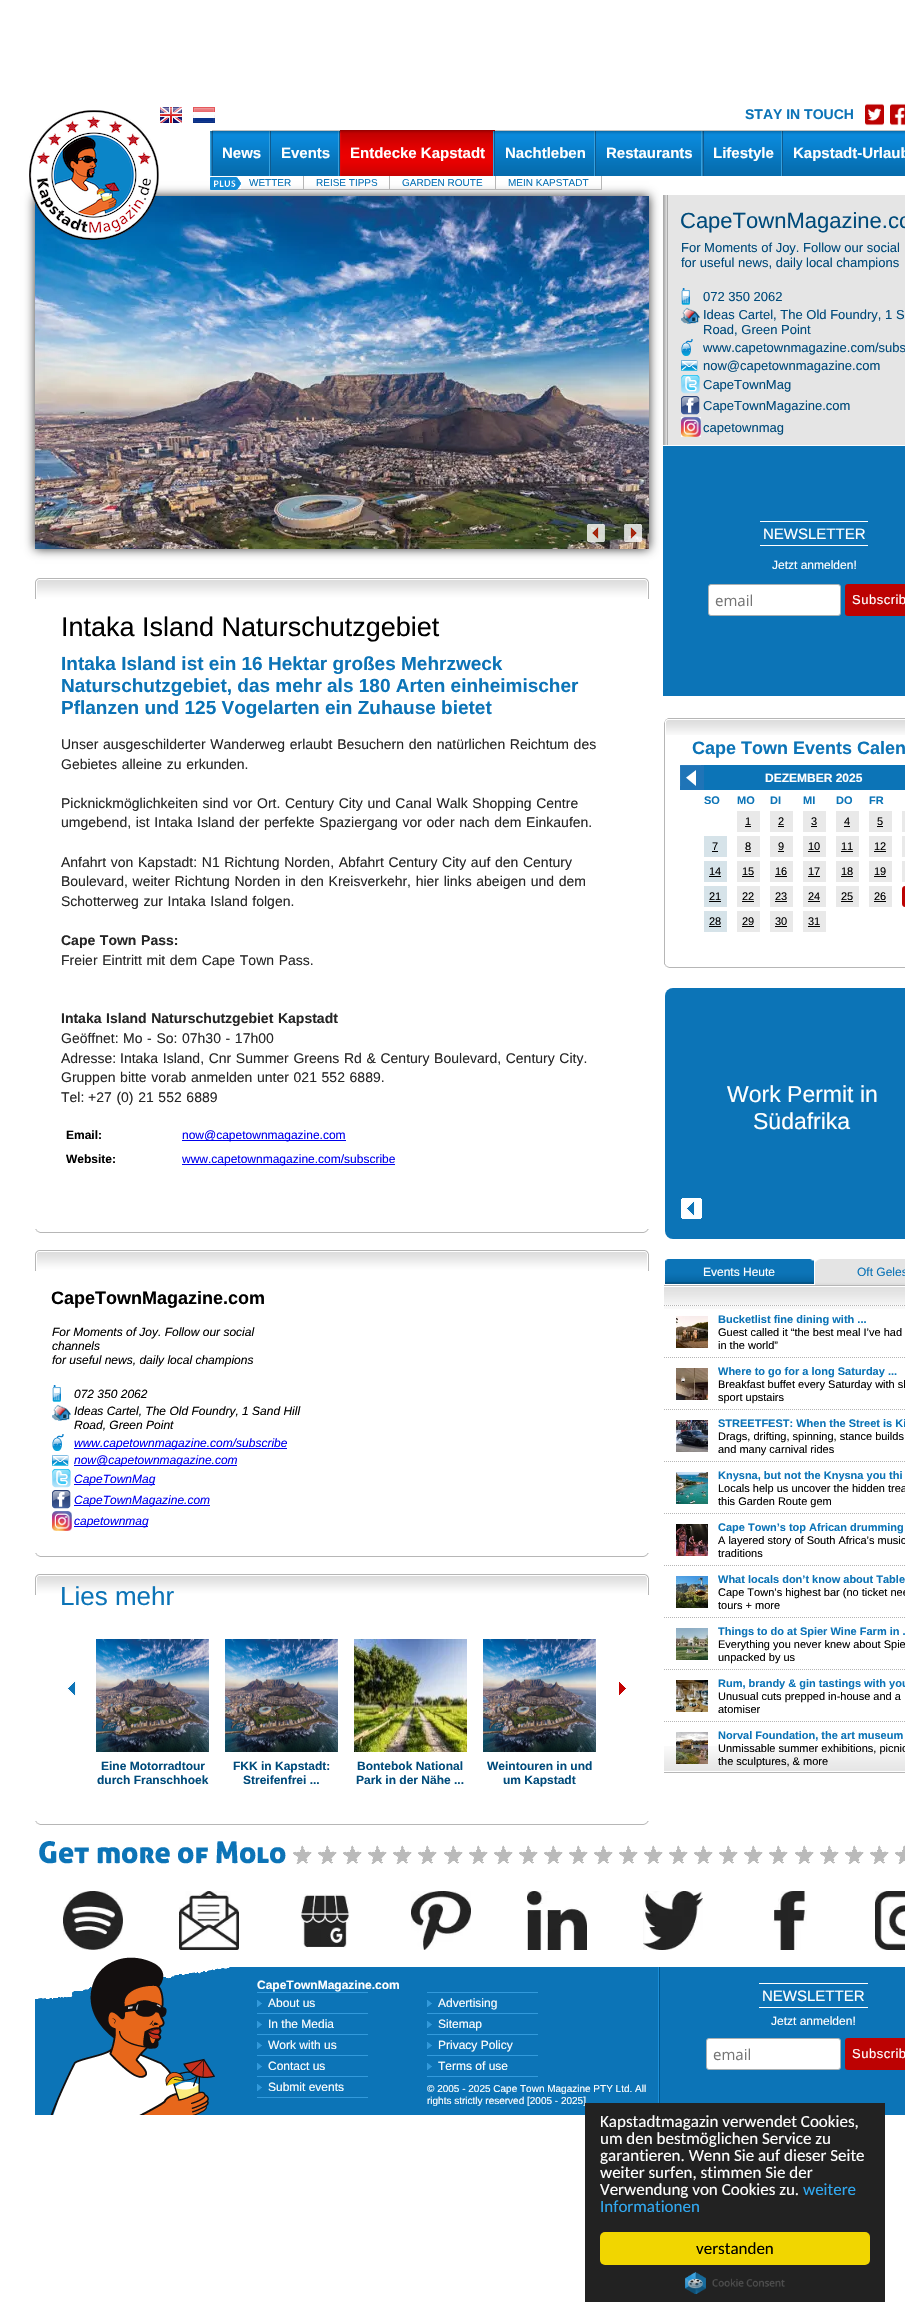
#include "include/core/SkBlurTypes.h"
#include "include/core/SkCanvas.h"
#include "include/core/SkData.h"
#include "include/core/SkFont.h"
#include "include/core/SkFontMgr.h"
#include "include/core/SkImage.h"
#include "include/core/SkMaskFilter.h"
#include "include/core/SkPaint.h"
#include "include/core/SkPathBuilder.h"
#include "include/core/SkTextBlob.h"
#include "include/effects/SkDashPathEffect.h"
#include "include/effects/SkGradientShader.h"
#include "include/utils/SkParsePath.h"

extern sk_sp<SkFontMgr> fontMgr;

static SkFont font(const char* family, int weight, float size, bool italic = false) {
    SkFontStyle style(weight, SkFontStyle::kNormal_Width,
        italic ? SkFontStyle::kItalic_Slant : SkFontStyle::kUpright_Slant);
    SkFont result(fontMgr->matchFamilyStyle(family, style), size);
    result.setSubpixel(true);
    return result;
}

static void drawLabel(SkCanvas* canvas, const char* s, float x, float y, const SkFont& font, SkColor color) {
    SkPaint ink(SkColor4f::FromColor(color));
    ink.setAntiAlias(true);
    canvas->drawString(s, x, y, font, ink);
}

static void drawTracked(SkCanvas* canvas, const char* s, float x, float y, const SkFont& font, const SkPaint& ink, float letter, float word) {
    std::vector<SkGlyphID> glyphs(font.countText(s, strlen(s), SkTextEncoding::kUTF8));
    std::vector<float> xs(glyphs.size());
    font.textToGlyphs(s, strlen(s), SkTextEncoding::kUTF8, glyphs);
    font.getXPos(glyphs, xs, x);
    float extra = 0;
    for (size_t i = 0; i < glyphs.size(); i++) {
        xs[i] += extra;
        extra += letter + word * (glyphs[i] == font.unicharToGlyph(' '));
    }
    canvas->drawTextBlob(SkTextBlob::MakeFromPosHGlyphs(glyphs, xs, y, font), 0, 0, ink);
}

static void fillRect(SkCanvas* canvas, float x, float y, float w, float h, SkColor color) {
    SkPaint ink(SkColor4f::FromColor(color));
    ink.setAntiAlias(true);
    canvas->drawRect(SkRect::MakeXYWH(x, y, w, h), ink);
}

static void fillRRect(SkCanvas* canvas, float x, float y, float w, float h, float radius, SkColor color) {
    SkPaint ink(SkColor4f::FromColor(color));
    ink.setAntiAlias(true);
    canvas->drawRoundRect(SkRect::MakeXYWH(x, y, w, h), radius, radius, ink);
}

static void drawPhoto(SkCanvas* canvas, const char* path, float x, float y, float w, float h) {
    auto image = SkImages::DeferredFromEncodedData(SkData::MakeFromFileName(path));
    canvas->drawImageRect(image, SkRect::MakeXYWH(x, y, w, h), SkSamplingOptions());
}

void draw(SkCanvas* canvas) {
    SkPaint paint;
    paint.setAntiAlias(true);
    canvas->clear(0xFFFFFFFF);
    drawPhoto(canvas, "assets/img16.png", 663, 195, 5, 250);
    paint.setColor(0xFF333333);
    paint.setMaskFilter(SkMaskFilter::MakeBlur(kNormal_SkBlurStyle, 5));
    canvas->drawRect(SkRect::MakeXYWH(35, 196, 614, 353), paint);
    paint.setMaskFilter(nullptr);
    drawPhoto(canvas, "assets/img13.png", 35, 196, 614, 353);
    drawPhoto(canvas, "assets/img1.png", 29, 110, 130, 130);
    drawPhoto(canvas, "assets/img2.png", 160, 107, 22, 16);
    drawPhoto(canvas, "assets/img3.png", 193, 107, 22, 16);
    SkFont font1 = font("Liberation Sans", 700, 14);
    drawLabel(canvas, "STAY IN TOUCH", 745, 119, font1, 0xFF0C74B7);
    drawPhoto(canvas, "assets/img4.png", 865, 103, 19, 23);
    drawPhoto(canvas, "assets/img5.png", 890, 103, 15, 23);
    drawPhoto(canvas, "assets/img6.png", 212, 130, 693, 46);
    drawPhoto(canvas, "assets/img7.png", 210, 131, 3, 45);
    SkFont font2 = font("Liberation Sans", 700, 15);
    drawLabel(canvas, "News", 222, 158, font2, 0xFFFFFFFF);
    drawPhoto(canvas, "assets/img8.png", 269, 131, 2, 45);
    drawLabel(canvas, "Events", 281, 158, font2, 0xFFFFFFFF);
    drawPhoto(canvas, "assets/img8.png", 338, 131, 2, 45);
    drawPhoto(canvas, "assets/img9.png", 340, 130, 154, 46);
    drawPhoto(canvas, "assets/img10.png", 494, 130, 1, 1);
    drawLabel(canvas, "Entdecke Kapstadt", 350, 158, font2, 0xFFFFFFFF);
    drawPhoto(canvas, "assets/img8.png", 493, 131, 2, 45);
    drawLabel(canvas, "Nachtleben", 505, 158, font2, 0xFFFFFFFF);
    drawPhoto(canvas, "assets/img8.png", 594, 131, 2, 45);
    drawLabel(canvas, "Restaurants", 606, 158, font2, 0xFFFFFFFF);
    drawPhoto(canvas, "assets/img11.png", 701, 131, 3, 45);
    drawLabel(canvas, "Lifestyle", 713, 158, font2, 0xFFFFFFFF);
    drawPhoto(canvas, "assets/img8.png", 781, 131, 2, 45);
    drawLabel(canvas, "Kapstadt-Urlaub", 793, 158, font2, 0xFFFFFFFF);
    drawPhoto(canvas, "assets/img12.png", 210, 177, 31, 13);
    SkFont font3 = font("Liberation Sans", 400, 10);
    drawLabel(canvas, "WETTER", 249, 186, font3, 0xFF0C74B7);
    fillRect(canvas, 303, 176, 1, 14, 0xFFB6B6B6);
    fillRect(canvas, 237, 189, 67, 1, 0xFFB6B6B6);
    drawLabel(canvas, "REISE TIPPS", 316, 186, font3, 0xFF0C74B7);
    fillRect(canvas, 389, 176, 1, 14, 0xFFB6B6B6);
    fillRect(canvas, 304, 189, 86, 1, 0xFFB6B6B6);
    drawLabel(canvas, "GARDEN ROUTE", 402, 186, font3, 0xFF0C74B7);
    fillRect(canvas, 495, 176, 1, 14, 0xFFB6B6B6);
    fillRect(canvas, 390, 189, 106, 1, 0xFFB6B6B6);
    drawLabel(canvas, "MEIN KAPSTADT", 508, 186, font3, 0xFF0C74B7);
    fillRect(canvas, 601, 176, 1, 14, 0xFFB6B6B6);
    fillRect(canvas, 496, 189, 106, 1, 0xFFB6B6B6);
    drawPhoto(canvas, "assets/img14.png", 587, 524, 18, 18);
    drawPhoto(canvas, "assets/img15.png", 624, 524, 18, 18);
    fillRect(canvas, 668, 195, 237, 250, 0xFFE5E5E5);
    SkFont font4 = font("Liberation Sans", 400, 22);
    drawLabel(canvas, "CapeTownMagazine.co", 680, 228, font4, 0xFF004B7B);
    SkFont font5 = font("Liberation Sans", 400, 13);
    drawLabel(canvas, "For Moments of Joy. Follow our social", 681, 252, font5, 0xFF004B7B);
    drawLabel(canvas, "for useful news, daily local champions", 681, 267, font5, 0xFF004B7B);
    drawPhoto(canvas, "assets/img17.png", 681, 288, 9, 17);
    drawLabel(canvas, "072 350 2062", 703, 301, font5, 0xFF004B7B);
    drawPhoto(canvas, "assets/img18.png", 681, 307, 19, 17);
    drawLabel(canvas, "Ideas Cartel, The Old Foundry, 1 S", 703, 319, font5, 0xFF004B7B);
    drawLabel(canvas, "Road, Green Point", 703, 334, font5, 0xFF004B7B);
    drawPhoto(canvas, "assets/img19.png", 681, 339, 12, 17);
    drawLabel(canvas, "www.capetownmagazine.com/subs", 703, 352, font5, 0xFF004B7B);
    drawPhoto(canvas, "assets/img20.png", 681, 360, 17, 11);
    drawLabel(canvas, "now@capetownmagazine.com", 703, 370, font5, 0xFF004B7B);
    drawPhoto(canvas, "assets/img21.png", 681, 375, 19, 19);
    drawLabel(canvas, "CapeTownMag", 703, 389, font5, 0xFF004B7B);
    drawPhoto(canvas, "assets/img22.png", 681, 396, 19, 19);
    drawLabel(canvas, "CapeTownMagazine.com", 703, 410, font5, 0xFF004B7B);
    drawPhoto(canvas, "assets/img23.png", 681, 417, 20, 20);
    drawLabel(canvas, "capetownmag", 703, 432, font5, 0xFF004B7B);
    fillRect(canvas, 663, 446, 242, 250, 0xFF0C74B7);
    fillRect(canvas, 760, 521, 108, 1, 0xFFFFFFFF);
    fillRect(canvas, 760, 545, 108, 1, 0xFFFFFFFF);
    SkFont font6 = font("Liberation Sans", 400, 15);
    drawLabel(canvas, "NEWSLETTER", 763, 539, font6, 0xFFFFFFFF);
    SkFont font7 = font("Liberation Sans", 400, 12);
    drawLabel(canvas, "Jetzt anmelden!", 772, 569, font7, 0xFFFFFFFF);
    paint.setColor(0xFFFFFFFF);
    canvas->drawRoundRect(SkRect::MakeXYWH(708.5f, 584.5f, 132, 31), 2.5f, 2.5f, paint);
    paint.setStroke(true);
    paint.setStrokeWidth(1);
    paint.setColor(0xFFABB0B2);
    canvas->drawRoundRect(SkRect::MakeXYWH(708.5f, 584.5f, 132, 31), 2.5f, 2.5f, paint);
    SkFont font8 = font("Open Sans", 400, 15);
    drawLabel(canvas, "email", 715, 606, font8, 0xFF757575);
    fillRRect(canvas, 845, 584, 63, 32, 3, 0xFFBC0202);
    paint.setStroke(false);
    paint.setColor(0xFFFFFFFF);
    drawTracked(canvas, "Subscrib", 852, 604, font5, paint, 0.5f, 0);
    drawPhoto(canvas, "assets/img24.png", 35, 578, 614, 21);
    drawPhoto(canvas, "assets/img25.png", 35, 1229, 614, 4);
    SkFont font9 = font("Liberation Sans", 400, 27);
    drawLabel(canvas, "Intaka Island Naturschutzgebiet", 61, 636, font9, 0xFF000000);
    SkFont font10 = font("Liberation Sans", 700, 19);
    drawLabel(canvas, "Intaka Island ist ein 16 Hektar großes Mehrzweck", 61, 670, font10, 0xFF0C74B7);
    drawLabel(canvas, "Naturschutzgebiet, das mehr als 180 Arten einheimischer", 61, 692, font10, 0xFF0C74B7);
    drawLabel(canvas, "Pflanzen und 125 Vogelarten ein Zuhause bietet", 61, 714, font10, 0xFF0C74B7);
    SkFont font11 = font("Liberation Sans", 400, 14);
    paint.setColor(0xFF262626);
    drawTracked(canvas, "Unser ausgeschilderter Wanderweg erlaubt Besuchern den natürlichen Reichtum des", 61, 749, font11, paint, 0, 0.75f);
    drawTracked(canvas, "Gebietes alleine zu erkunden.", 61, 769, font11, paint, 0, 0.75f);
    drawTracked(canvas, "Picknickmöglichkeiten sind vor Ort. Century City und Canal Walk Shopping Centre", 61, 808, font11, paint, 0, 0.75f);
    drawTracked(canvas, "umgebend, ist Intaka Island der perfekte Spaziergang vor oder nach dem Einkaufen.", 61, 827, font11, paint, 0, 0.75f);
    drawTracked(canvas, "Anfahrt von Kapstadt: N1 Richtung Norden, Abfahrt Century City auf den Century", 61, 867, font11, paint, 0, 0.75f);
    drawTracked(canvas, "Boulevard, weiter Richtung Norden in den Kreisverkehr, hier links abeigen und dem", 61, 886, font11, paint, 0, 0.75f);
    drawTracked(canvas, "Schotterweg zur Intaka Island folgen.", 61, 906, font11, paint, 0, 0.75f);
    drawTracked(canvas, "Cape Town Pass:", 61, 945, font1, paint, 0, 0.75f);
    drawTracked(canvas, "Freier Eintritt mit dem Cape Town Pass.", 61, 965, font11, paint, 0, 0.75f);
    drawTracked(canvas, "Intaka Island Naturschutzgebiet Kapstadt", 61, 1023, font1, paint, 0, 0.75f);
    drawLabel(canvas, "Geöffnet:", 61, 1043, font11, 0xFF262626);
    drawTracked(canvas, "Mo - So:", 123, 1043, font11, paint, 0, 0.75f);
    drawTracked(canvas, "07h30 - 17h00", 182, 1043, font11, paint, 0, 0.75f);
    drawLabel(canvas, "Adresse:", 61, 1063, font11, 0xFF262626);
    drawTracked(canvas, "Intaka Island, Cnr Summer Greens Rd & Century Boulevard, Century City.", 120, 1063, font11, paint, 0, 0.75f);
    drawTracked(canvas, "Gruppen bitte vorab anmelden unter 021 552 6889.", 61, 1082, font11, paint, 0, 0.75f);
    drawLabel(canvas, "Tel:", 61, 1102, font11, 0xFF262626);
    drawTracked(canvas, "+27 (0) 21 552 6889", 88, 1102, font11, paint, 0, 0.75f);
    SkFont font12 = font("Liberation Sans", 700, 12);
    drawLabel(canvas, "Email:", 66, 1139, font12, 0xFF000000);
    fillRect(canvas, 182, 1140, 164, 1, 0xFF0000EE);
    drawLabel(canvas, "now@capetownmagazine.com", 182, 1139, font7, 0xFF0000EE);
    drawLabel(canvas, "Website:", 66, 1163, font12, 0xFF000000);
    fillRect(canvas, 182, 1164, 213, 1, 0xFF0000EE);
    drawLabel(canvas, "www.capetownmagazine.com/subscribe", 182, 1163, font7, 0xFF0000EE);
    drawPhoto(canvas, "assets/img24.png", 35, 1250, 614, 21);
    drawPhoto(canvas, "assets/img25.png", 35, 1553, 614, 4);
    SkFont font13 = font("Liberation Sans", 700, 18);
    drawLabel(canvas, "CapeTownMagazine.com", 51, 1304, font13, 0xFF000000);
    SkFont font14 = font("Liberation Sans", 400, 12, true);
    drawLabel(canvas, "For Moments of Joy. Follow our social", 52, 1336, font14, 0xFF000000);
    drawLabel(canvas, "channels", 52, 1350, font14, 0xFF000000);
    drawLabel(canvas, "for useful news, daily local champions", 52, 1364, font14, 0xFF000000);
    drawPhoto(canvas, "assets/img26.png", 52, 1385, 9, 17);
    drawLabel(canvas, "072 350 2062", 74, 1398, font14, 0xFF000000);
    drawPhoto(canvas, "assets/img27.png", 52, 1404, 19, 17);
    drawLabel(canvas, "Ideas Cartel, The Old Foundry, 1 Sand Hill", 74, 1415, font14, 0xFF000000);
    drawLabel(canvas, "Road, Green Point", 74, 1429, font14, 0xFF000000);
    drawPhoto(canvas, "assets/img28.png", 52, 1434, 12, 17);
    fillRect(canvas, 74, 1448, 213, 1, 0xFF0000EE);
    drawLabel(canvas, "www.capetownmagazine.com/subscribe", 74, 1447, font14, 0xFF0000EE);
    drawPhoto(canvas, "assets/img29.png", 52, 1455, 17, 11);
    fillRect(canvas, 74, 1465, 163, 1, 0xFF0000EE);
    drawLabel(canvas, "now@capetownmagazine.com", 74, 1464, font14, 0xFF0000EE);
    drawPhoto(canvas, "assets/img30.png", 52, 1469, 19, 19);
    fillRect(canvas, 74, 1484, 81, 1, 0xFF0000EE);
    drawLabel(canvas, "CapeTownMag", 74, 1483, font14, 0xFF0000EE);
    drawPhoto(canvas, "assets/img31.png", 52, 1490, 19, 19);
    fillRect(canvas, 74, 1505, 136, 1, 0xFF0000EE);
    drawLabel(canvas, "CapeTownMagazine.com", 74, 1504, font14, 0xFF0000EE);
    drawPhoto(canvas, "assets/img23.png", 52, 1511, 20, 20);
    fillRect(canvas, 74, 1526, 74, 1, 0xFF0000EE);
    drawLabel(canvas, "capetownmag", 74, 1525, font14, 0xFF0000EE);
    drawPhoto(canvas, "assets/img24.png", 35, 1574, 614, 21);
    drawPhoto(canvas, "assets/img25.png", 35, 1821, 614, 4);
    SkFont font15 = font("Liberation Sans", 400, 26);
    drawLabel(canvas, "Lies mehr", 60, 1605, font15, 0xFF0C74B7);
    drawPhoto(canvas, "assets/img32.png", 67, 1681, 9, 15);
    drawPhoto(canvas, "assets/img33.png", 619, 1682, 7, 13);
    drawPhoto(canvas, "assets/img34.png", 96, 1639, 113, 113);
    drawLabel(canvas, "Eine Motorradtour", 101, 1770, font12, 0xFF004B7B);
    drawLabel(canvas, "durch Franschhoek", 97, 1784, font12, 0xFF004B7B);
    drawPhoto(canvas, "assets/img34.png", 225, 1639, 113, 113);
    drawLabel(canvas, "FKK in Kapstadt:", 233, 1770, font12, 0xFF004B7B);
    drawLabel(canvas, "Streifenfrei ...", 243, 1784, font12, 0xFF004B7B);
    drawPhoto(canvas, "assets/img35.png", 354, 1639, 113, 113);
    drawLabel(canvas, "Bontebok National", 357, 1770, font12, 0xFF004B7B);
    drawLabel(canvas, "Park in der Nähe ...", 356, 1784, font12, 0xFF004B7B);
    drawPhoto(canvas, "assets/img34.png", 483, 1639, 113, 113);
    drawLabel(canvas, "Weintouren in und", 487, 1770, font12, 0xFF004B7B);
    drawLabel(canvas, "um Kapstadt", 503, 1784, font12, 0xFF004B7B);
    fillRect(canvas, 664, 735, 1, 233, 0xFFB6B6B6);
    drawPhoto(canvas, "assets/img36.png", 664, 718, 241, 17);
    drawPhoto(canvas, "assets/img37.png", 664, 964, 241, 4);
    drawLabel(canvas, "Cape Town Events Calen", 692, 754, font13, 0xFF0C74B7);
    fillRect(canvas, 680, 765, 24, 25, 0xFF1F74B7);
    drawPhoto(canvas, "assets/img38.png", 680, 765, 21, 21);
    fillRect(canvas, 704, 765, 201, 25, 0xFF0C74B7);
    drawLabel(canvas, "DEZEMBER 2025", 765, 782, font12, 0xFFFFFFFF);
    SkFont font16 = font("Liberation Sans", 700, 11);
    drawLabel(canvas, "SO", 704, 804, font16, 0xFF0C74B7);
    drawLabel(canvas, "MO", 737, 804, font16, 0xFF0C74B7);
    drawLabel(canvas, "DI", 770, 804, font16, 0xFF0C74B7);
    drawLabel(canvas, "MI", 803, 804, font16, 0xFF0C74B7);
    drawLabel(canvas, "DO", 836, 804, font16, 0xFF0C74B7);
    drawLabel(canvas, "FR", 869, 804, font16, 0xFF0C74B7);
    fillRect(canvas, 737, 811, 23, 21, 0xFFE9E9E9);
    SkFont font17 = font("Liberation Sans", 400, 11);
    drawLabel(canvas, "1", 745, 825, font17, 0xFF000000);
    fillRect(canvas, 745, 826, 6, 1, 0xFF000000);
    fillRect(canvas, 770, 811, 23, 21, 0xFFE9E9E9);
    drawLabel(canvas, "2", 778, 825, font17, 0xFF000000);
    fillRect(canvas, 778, 826, 6, 1, 0xFF000000);
    fillRect(canvas, 803, 811, 23, 21, 0xFFE9E9E9);
    drawLabel(canvas, "3", 811, 825, font17, 0xFF000000);
    fillRect(canvas, 811, 826, 6, 1, 0xFF000000);
    fillRect(canvas, 836, 811, 23, 21, 0xFFE9E9E9);
    drawLabel(canvas, "4", 844, 825, font17, 0xFF000000);
    fillRect(canvas, 844, 826, 6, 1, 0xFF000000);
    fillRect(canvas, 869, 811, 23, 21, 0xFFE9E9E9);
    drawLabel(canvas, "5", 877, 825, font17, 0xFF000000);
    fillRect(canvas, 877, 826, 6, 1, 0xFF000000);
    fillRect(canvas, 902, 811, 3, 21, 0xFFE9E9E9);
    fillRect(canvas, 704, 836, 23, 21, 0xFFD6E3E9);
    drawLabel(canvas, "7", 712, 850, font17, 0xFF000000);
    fillRect(canvas, 712, 851, 6, 1, 0xFF000000);
    fillRect(canvas, 737, 836, 23, 21, 0xFFE9E9E9);
    drawLabel(canvas, "8", 745, 850, font17, 0xFF000000);
    fillRect(canvas, 745, 851, 6, 1, 0xFF000000);
    fillRect(canvas, 770, 836, 23, 21, 0xFFE9E9E9);
    drawLabel(canvas, "9", 778, 850, font17, 0xFF000000);
    fillRect(canvas, 778, 851, 6, 1, 0xFF000000);
    fillRect(canvas, 803, 836, 23, 21, 0xFFE9E9E9);
    drawLabel(canvas, "10", 808, 850, font17, 0xFF000000);
    fillRect(canvas, 808, 851, 12, 1, 0xFF000000);
    fillRect(canvas, 836, 836, 23, 21, 0xFFE9E9E9);
    drawLabel(canvas, "11", 841, 850, font17, 0xFF000000);
    fillRect(canvas, 841, 851, 12, 1, 0xFF000000);
    fillRect(canvas, 869, 836, 23, 21, 0xFFE9E9E9);
    drawLabel(canvas, "12", 874, 850, font17, 0xFF000000);
    fillRect(canvas, 874, 851, 12, 1, 0xFF000000);
    fillRect(canvas, 902, 836, 3, 21, 0xFFE9E9E9);
    fillRect(canvas, 704, 861, 23, 21, 0xFFD6E3E9);
    drawLabel(canvas, "14", 709, 875, font17, 0xFF000000);
    fillRect(canvas, 709, 876, 12, 1, 0xFF000000);
    fillRect(canvas, 737, 861, 23, 21, 0xFFE9E9E9);
    drawLabel(canvas, "15", 742, 875, font17, 0xFF000000);
    fillRect(canvas, 742, 876, 12, 1, 0xFF000000);
    fillRect(canvas, 770, 861, 23, 21, 0xFFE9E9E9);
    drawLabel(canvas, "16", 775, 875, font17, 0xFF000000);
    fillRect(canvas, 775, 876, 12, 1, 0xFF000000);
    fillRect(canvas, 803, 861, 23, 21, 0xFFE9E9E9);
    drawLabel(canvas, "17", 808, 875, font17, 0xFF000000);
    fillRect(canvas, 808, 876, 12, 1, 0xFF000000);
    fillRect(canvas, 836, 861, 23, 21, 0xFFE9E9E9);
    drawLabel(canvas, "18", 841, 875, font17, 0xFF000000);
    fillRect(canvas, 841, 876, 12, 1, 0xFF000000);
    fillRect(canvas, 869, 861, 23, 21, 0xFFE9E9E9);
    drawLabel(canvas, "19", 874, 875, font17, 0xFF000000);
    fillRect(canvas, 874, 876, 12, 1, 0xFF000000);
    fillRect(canvas, 902, 861, 3, 21, 0xFFE9E9E9);
    fillRect(canvas, 704, 886, 23, 21, 0xFFD6E3E9);
    drawLabel(canvas, "21", 709, 900, font17, 0xFF000000);
    fillRect(canvas, 709, 901, 12, 1, 0xFF000000);
    fillRect(canvas, 737, 886, 23, 21, 0xFFE9E9E9);
    drawLabel(canvas, "22", 742, 900, font17, 0xFF000000);
    fillRect(canvas, 742, 901, 12, 1, 0xFF000000);
    fillRect(canvas, 770, 886, 23, 21, 0xFFE9E9E9);
    drawLabel(canvas, "23", 775, 900, font17, 0xFF000000);
    fillRect(canvas, 775, 901, 12, 1, 0xFF000000);
    fillRect(canvas, 803, 886, 23, 21, 0xFFE9E9E9);
    drawLabel(canvas, "24", 808, 900, font17, 0xFF000000);
    fillRect(canvas, 808, 901, 12, 1, 0xFF000000);
    fillRect(canvas, 836, 886, 23, 21, 0xFFE9E9E9);
    drawLabel(canvas, "25", 841, 900, font17, 0xFF000000);
    fillRect(canvas, 841, 901, 12, 1, 0xFF000000);
    fillRect(canvas, 869, 886, 23, 21, 0xFFE9E9E9);
    drawLabel(canvas, "26", 874, 900, font17, 0xFF000000);
    fillRect(canvas, 874, 901, 12, 1, 0xFF000000);
    fillRRect(canvas, 902, 886, 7, 21, 4, 0xFFBC0202);
    fillRect(canvas, 704, 911, 23, 21, 0xFFD6E3E9);
    drawLabel(canvas, "28", 709, 925, font17, 0xFF000000);
    fillRect(canvas, 709, 926, 12, 1, 0xFF000000);
    fillRect(canvas, 737, 911, 23, 21, 0xFFE9E9E9);
    drawLabel(canvas, "29", 742, 925, font17, 0xFF000000);
    fillRect(canvas, 742, 926, 12, 1, 0xFF000000);
    fillRect(canvas, 770, 911, 23, 21, 0xFFE9E9E9);
    drawLabel(canvas, "30", 775, 925, font17, 0xFF000000);
    fillRect(canvas, 775, 926, 12, 1, 0xFF000000);
    fillRect(canvas, 803, 911, 23, 21, 0xFFE9E9E9);
    drawLabel(canvas, "31", 808, 925, font17, 0xFF000000);
    fillRect(canvas, 808, 926, 12, 1, 0xFF000000);
    fillRRect(canvas, 665, 988, 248, 251, 8, 0xFF0C74B7);
    SkFont font18 = font("Liberation Sans", 400, 23);
    drawLabel(canvas, "Work Permit in", 727, 1102, font18, 0xFFFFFFFF);
    drawLabel(canvas, "Südafrika", 753, 1129, font18, 0xFFFFFFFF);
    drawPhoto(canvas, "assets/img39.png", 681, 1198, 21, 21);
    fillRect(canvas, 664, 1285, 241, 1, 0xFFB6B6B6);
    drawPhoto(canvas, "assets/img40.png", 665, 1259, 149, 25);
    drawLabel(canvas, "Events Heute", 703, 1276, font7, 0xFFFFFFFF);
    drawPhoto(canvas, "assets/img41.png", 815, 1259, 90, 26);
    drawLabel(canvas, "Oft Geles", 857, 1276, font7, 0xFF0C74B7);
    drawPhoto(canvas, "assets/img42.png", 664, 1287, 241, 22);
    fillRect(canvas, 664, 1772, 241, 1, 0xFFB6B6B6);
    drawPhoto(canvas, "assets/img43.png", 664, 1746, 241, 25);
    drawPhoto(canvas, "assets/img44.png", 664, 1305, 241, 1);
    drawPhoto(canvas, "assets/img45.png", 676, 1316, 32, 32);
    drawLabel(canvas, "Bucketlist fine dining with ...", 718, 1323, font16, 0xFF0C74B7);
    drawLabel(canvas, "Guest called it “the best meal I’ve had", 718, 1336, font17, 0xFF000000);
    drawLabel(canvas, "in the world”", 718, 1349, font17, 0xFF000000);
    drawPhoto(canvas, "assets/img44.png", 664, 1357, 241, 1);
    drawPhoto(canvas, "assets/img46.png", 676, 1368, 32, 32);
    drawLabel(canvas, "Where to go for a long Saturday ...", 718, 1375, font16, 0xFF0C74B7);
    drawLabel(canvas, "Breakfast buffet every Saturday with sh", 718, 1388, font17, 0xFF000000);
    drawLabel(canvas, "sport upstairs", 718, 1401, font17, 0xFF000000);
    drawPhoto(canvas, "assets/img44.png", 664, 1409, 241, 1);
    drawPhoto(canvas, "assets/img47.png", 676, 1420, 32, 32);
    drawLabel(canvas, "STREETFEST: When the Street is Ki", 718, 1427, font16, 0xFF0C74B7);
    drawLabel(canvas, "Drags, drifting, spinning, stance builds,", 718, 1440, font17, 0xFF000000);
    drawLabel(canvas, "and many carnival rides", 718, 1453, font17, 0xFF000000);
    drawPhoto(canvas, "assets/img44.png", 664, 1461, 241, 1);
    drawPhoto(canvas, "assets/img48.png", 676, 1472, 32, 32);
    drawLabel(canvas, "Knysna, but not the Knysna you thi", 718, 1479, font16, 0xFF0C74B7);
    drawLabel(canvas, "Locals help us uncover the hidden trea", 718, 1492, font17, 0xFF000000);
    drawLabel(canvas, "this Garden Route gem", 718, 1505, font17, 0xFF000000);
    drawPhoto(canvas, "assets/img44.png", 664, 1513, 241, 1);
    drawPhoto(canvas, "assets/img49.png", 676, 1524, 32, 32);
    drawLabel(canvas, "Cape Town’s top African drumming", 718, 1531, font16, 0xFF0C74B7);
    drawLabel(canvas, "A layered story of South Africa’s music", 718, 1544, font17, 0xFF000000);
    drawLabel(canvas, "traditions", 718, 1557, font17, 0xFF000000);
    drawPhoto(canvas, "assets/img44.png", 664, 1565, 241, 1);
    drawPhoto(canvas, "assets/img50.png", 676, 1576, 32, 32);
    drawLabel(canvas, "What locals don’t know about Table", 718, 1583, font16, 0xFF0C74B7);
    drawLabel(canvas, "Cape Town’s highest bar (no ticket nee", 718, 1596, font17, 0xFF000000);
    drawLabel(canvas, "tours + more", 718, 1609, font17, 0xFF000000);
    drawPhoto(canvas, "assets/img44.png", 664, 1617, 241, 1);
    drawPhoto(canvas, "assets/img51.png", 676, 1628, 32, 32);
    drawLabel(canvas, "Things to do at Spier Wine Farm in .", 718, 1635, font16, 0xFF0C74B7);
    drawLabel(canvas, "Everything you never knew about Spie", 718, 1648, font17, 0xFF000000);
    drawLabel(canvas, "unpacked by us", 718, 1661, font17, 0xFF000000);
    drawPhoto(canvas, "assets/img44.png", 664, 1669, 241, 1);
    drawPhoto(canvas, "assets/img52.png", 676, 1680, 32, 32);
    drawLabel(canvas, "Rum, brandy & gin tastings with you", 718, 1687, font16, 0xFF0C74B7);
    drawLabel(canvas, "Unusual cuts prepped in-house and a", 718, 1700, font17, 0xFF000000);
    drawLabel(canvas, "atomiser", 718, 1713, font17, 0xFF000000);
    drawPhoto(canvas, "assets/img44.png", 664, 1721, 241, 1);
    drawPhoto(canvas, "assets/img53.png", 676, 1732, 32, 32);
    drawLabel(canvas, "Norval Foundation, the art museum", 718, 1739, font16, 0xFF0C74B7);
    drawLabel(canvas, "Unmissable summer exhibitions, picnic", 718, 1752, font17, 0xFF000000);
    drawLabel(canvas, "the sculptures, & more", 718, 1765, font17, 0xFF000000);
    drawPhoto(canvas, "assets/img54.png", 39, 1841, 866, 23);
    drawPhoto(canvas, "assets/img55.png", 63, 1891, 60, 59);
    drawPhoto(canvas, "assets/img56.png", 179, 1891, 60, 59);
    drawPhoto(canvas, "assets/img57.png", 301, 1894, 49, 54);
    drawPhoto(canvas, "assets/img58.png", 411, 1891, 60, 59);
    drawPhoto(canvas, "assets/img59.png", 527, 1891, 60, 59);
    drawPhoto(canvas, "assets/img60.png", 643, 1891, 60, 59);
    drawPhoto(canvas, "assets/img61.png", 773, 1891, 34, 59);
    drawPhoto(canvas, "assets/img62.png", 875, 1891, 30, 59);
    fillRect(canvas, 35, 1967, 870, 148, 0xFF0C74B7);
    drawPhoto(canvas, "assets/img63.png", 35, 1967, 195, 32);
    drawPhoto(canvas, "assets/img64.png", 50, 1957, 165, 158);
    drawPhoto(canvas, "assets/img65.png", 658, 1967, 2, 136);
    drawLabel(canvas, "CapeTownMagazine.com", 257, 1989, font12, 0xFFFFFFFF);
    fillRect(canvas, 257, 1992, 111, 1, 0xFF329ADC);
    drawPhoto(canvas, "assets/img66.png", 257, 2000, 5, 7);
    fillRect(canvas, 257, 2013, 111, 1, 0xFF329ADC);
    drawLabel(canvas, "About us", 268, 2007, font7, 0xFFFFFFFF);
    drawPhoto(canvas, "assets/img66.png", 257, 2021, 5, 7);
    fillRect(canvas, 257, 2034, 111, 1, 0xFF329ADC);
    drawLabel(canvas, "In the Media", 268, 2028, font7, 0xFFFFFFFF);
    drawPhoto(canvas, "assets/img66.png", 257, 2042, 5, 7);
    fillRect(canvas, 257, 2055, 111, 1, 0xFF329ADC);
    drawLabel(canvas, "Work with us", 268, 2049, font7, 0xFFFFFFFF);
    drawPhoto(canvas, "assets/img66.png", 257, 2063, 5, 7);
    fillRect(canvas, 257, 2076, 111, 1, 0xFF329ADC);
    drawLabel(canvas, "Contact us", 268, 2070, font7, 0xFFFFFFFF);
    drawPhoto(canvas, "assets/img66.png", 257, 2084, 5, 7);
    fillRect(canvas, 257, 2097, 111, 1, 0xFF329ADC);
    drawLabel(canvas, "Submit events", 268, 2091, font7, 0xFFFFFFFF);
    fillRect(canvas, 427, 1992, 111, 1, 0xFF329ADC);
    drawPhoto(canvas, "assets/img66.png", 427, 2000, 5, 7);
    fillRect(canvas, 427, 2013, 111, 1, 0xFF329ADC);
    drawLabel(canvas, "Advertising", 438, 2007, font7, 0xFFFFFFFF);
    drawPhoto(canvas, "assets/img66.png", 427, 2021, 5, 7);
    fillRect(canvas, 427, 2034, 111, 1, 0xFF329ADC);
    drawLabel(canvas, "Sitemap", 438, 2028, font7, 0xFFFFFFFF);
    drawPhoto(canvas, "assets/img66.png", 427, 2042, 5, 7);
    fillRect(canvas, 427, 2055, 111, 1, 0xFF329ADC);
    drawLabel(canvas, "Privacy Policy", 438, 2049, font7, 0xFFFFFFFF);
    drawPhoto(canvas, "assets/img66.png", 427, 2063, 5, 7);
    fillRect(canvas, 427, 2076, 111, 1, 0xFF329ADC);
    drawLabel(canvas, "Terms of use", 438, 2070, font7, 0xFFFFFFFF);
    drawLabel(canvas, "© 2005 - 2025 Cape Town Magazine PTY Ltd. All", 427, 2092, font3, 0xFFFFFFFF);
    drawLabel(canvas, "rights strictly reserved [2005 - 2025]", 427, 2104, font3, 0xFFFFFFFF);
    fillRect(canvas, 759, 1983, 109, 1, 0xFFFFFFFF);
    fillRect(canvas, 759, 2007, 109, 1, 0xFFFFFFFF);
    drawLabel(canvas, "NEWSLETTER", 762, 2001, font6, 0xFFFFFFFF);
    drawLabel(canvas, "Jetzt anmelden!", 771, 2025, font7, 0xFFFFFFFF);
    paint.setColor(0xFFFFFFFF);
    canvas->drawRoundRect(SkRect::MakeXYWH(706.5f, 2038.5f, 134, 31), 2.5f, 2.5f, paint);
    paint.setStroke(true);
    paint.setColor(0xFFABB0B2);
    canvas->drawRoundRect(SkRect::MakeXYWH(706.5f, 2038.5f, 134, 31), 2.5f, 2.5f, paint);
    drawLabel(canvas, "email", 713, 2060, font8, 0xFF757575);
    fillRRect(canvas, 845, 2038, 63, 32, 3, 0xFFBC0202);
    paint.setStroke(false);
    paint.setColor(0xFFFFFFFF);
    drawTracked(canvas, "Subscrib", 852, 2058, font5, paint, 0.5f, 0);
    fillRect(canvas, 585, 2103, 300, 199, 0xFF222222);
    SkFont font19 = font("Carlito", 400, 17);
    drawLabel(canvas, "Kapstadtmagazin verwendet Cookies,", 600, 2127, font19, 0xFFFFFFFF);
    drawLabel(canvas, "um den bestmöglichen Service zu", 600, 2144, font19, 0xFFFFFFFF);
    drawLabel(canvas, "garantieren. Wenn Sie auf dieser Seite", 600, 2161, font19, 0xFFFFFFFF);
    drawLabel(canvas, "weiter surfen, stimmen Sie der", 600, 2178, font19, 0xFFFFFFFF);
    drawLabel(canvas, "Verwendung von Cookies zu.", 600, 2195, font19, 0xFFFFFFFF);
    drawLabel(canvas, "weitere", 803, 2195, font19, 0xFF31A8F0);
    drawLabel(canvas, "Informationen", 600, 2212, font19, 0xFF31A8F0);
    fillRRect(canvas, 600, 2232, 270, 33, 5, 0xFFF1D600);
    drawLabel(canvas, "verstanden", 696, 2254, font19, 0xFF000000);
    drawPhoto(canvas, "assets/img67.png", 685, 2272, 100, 22);
}
